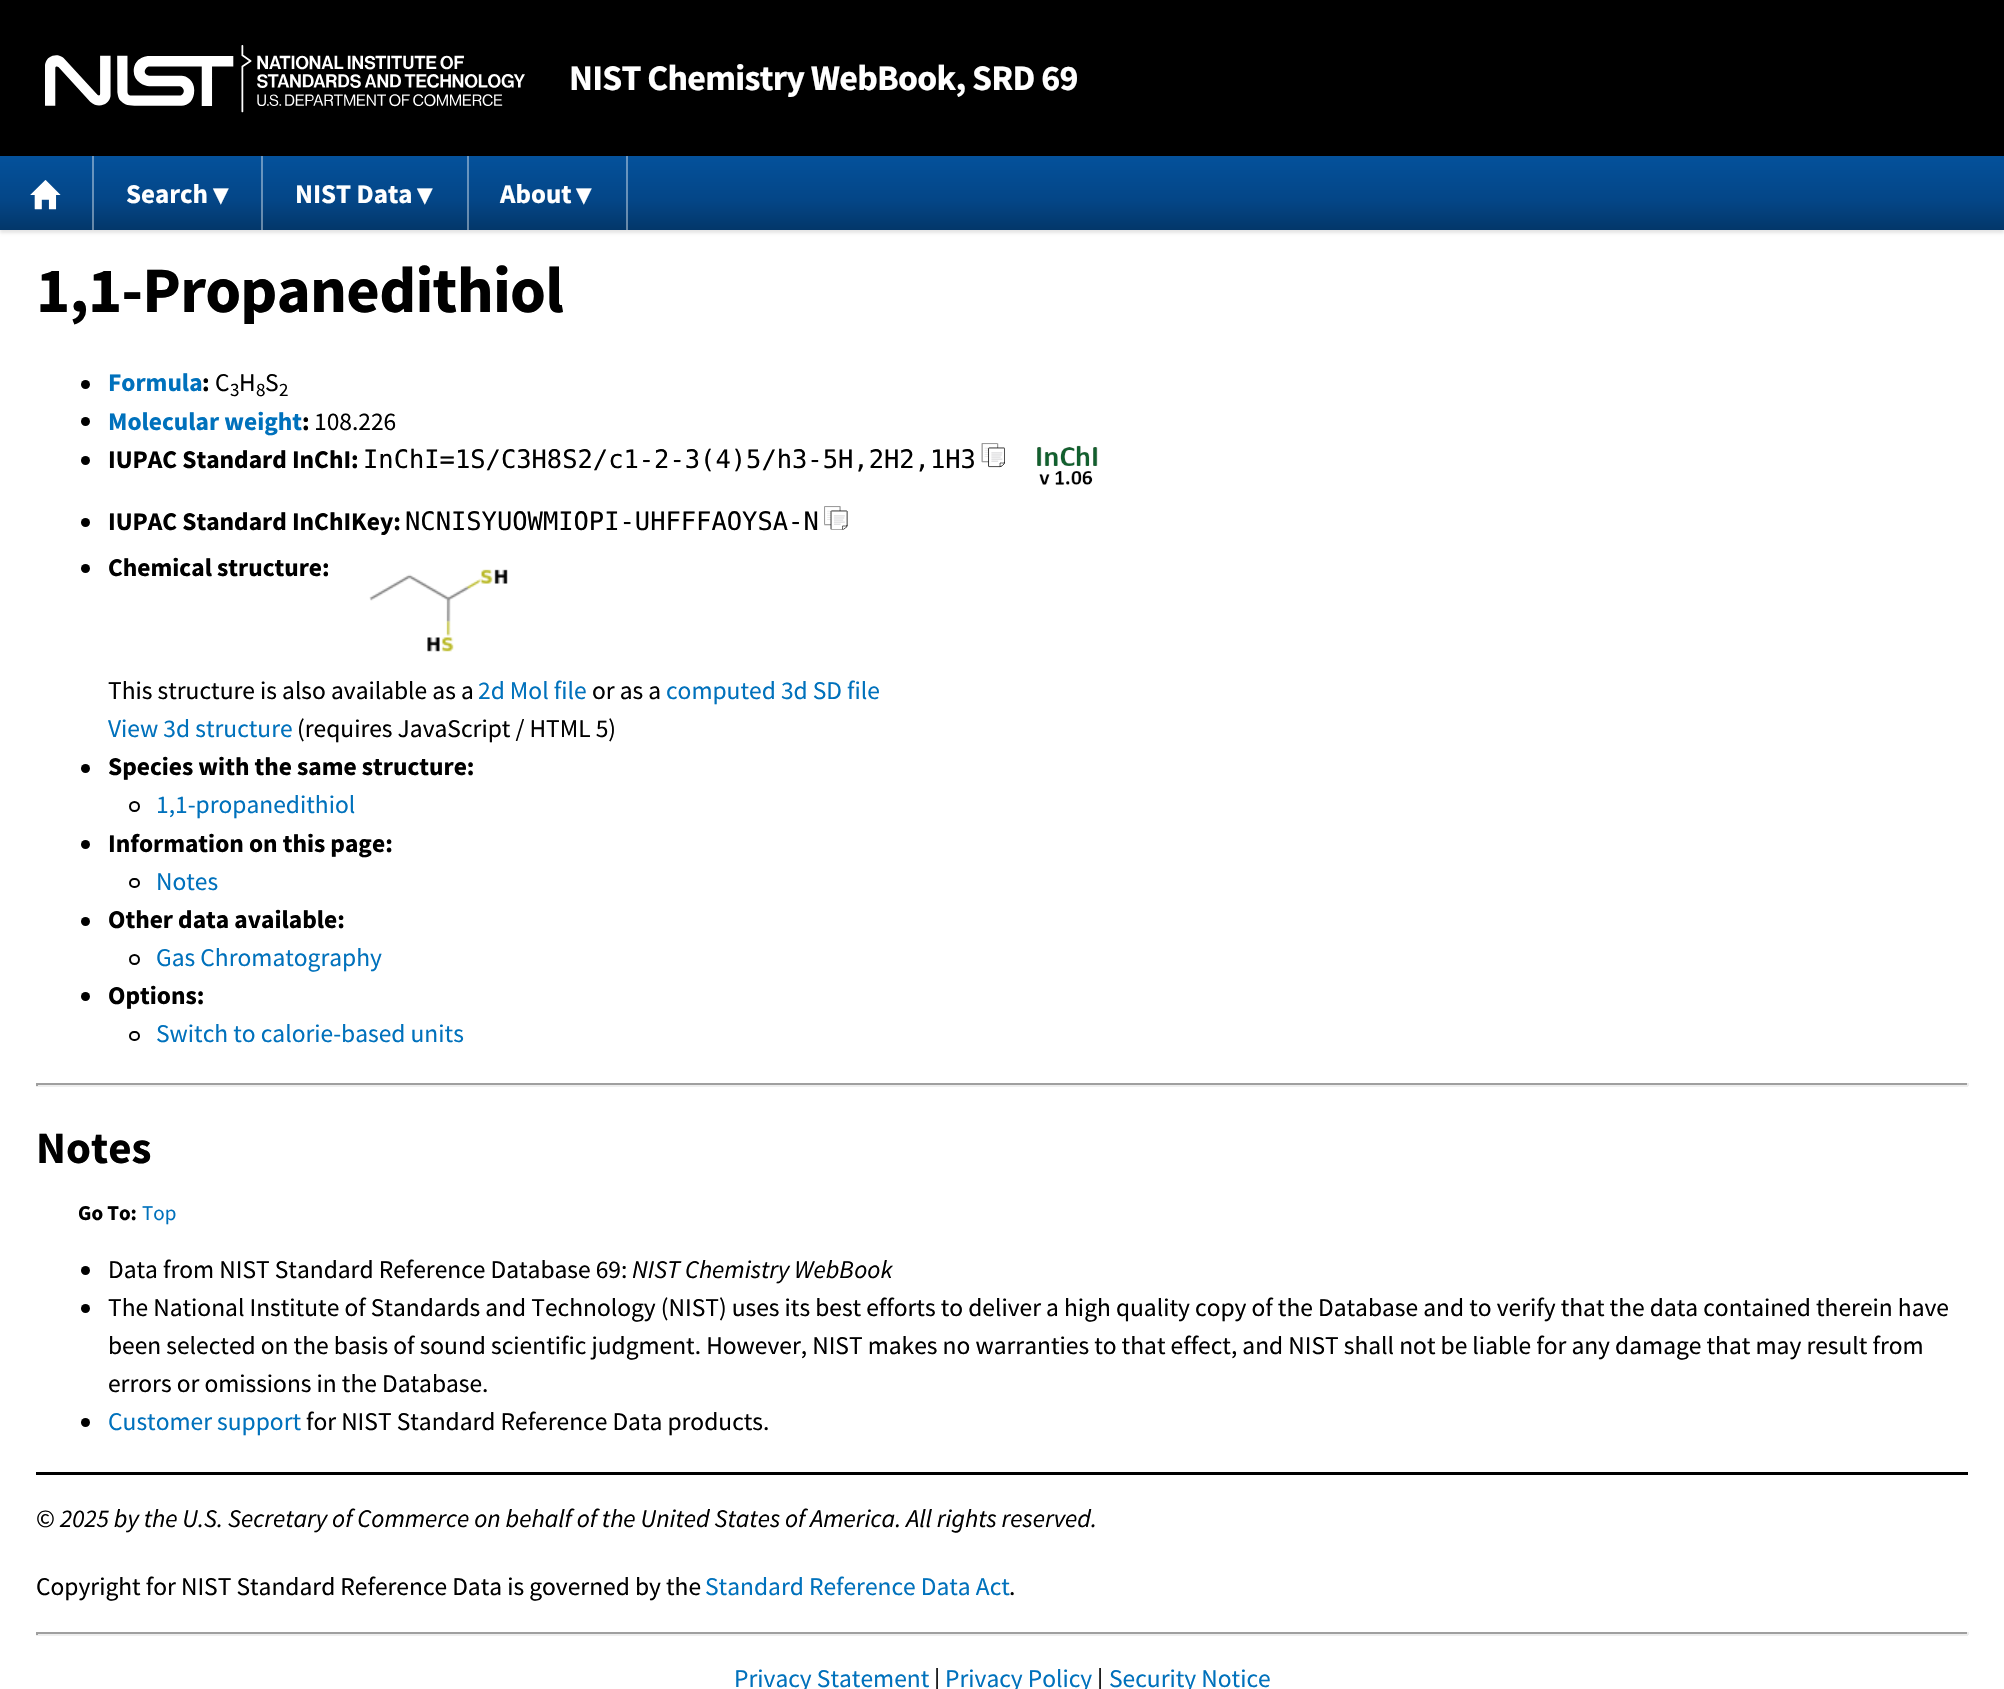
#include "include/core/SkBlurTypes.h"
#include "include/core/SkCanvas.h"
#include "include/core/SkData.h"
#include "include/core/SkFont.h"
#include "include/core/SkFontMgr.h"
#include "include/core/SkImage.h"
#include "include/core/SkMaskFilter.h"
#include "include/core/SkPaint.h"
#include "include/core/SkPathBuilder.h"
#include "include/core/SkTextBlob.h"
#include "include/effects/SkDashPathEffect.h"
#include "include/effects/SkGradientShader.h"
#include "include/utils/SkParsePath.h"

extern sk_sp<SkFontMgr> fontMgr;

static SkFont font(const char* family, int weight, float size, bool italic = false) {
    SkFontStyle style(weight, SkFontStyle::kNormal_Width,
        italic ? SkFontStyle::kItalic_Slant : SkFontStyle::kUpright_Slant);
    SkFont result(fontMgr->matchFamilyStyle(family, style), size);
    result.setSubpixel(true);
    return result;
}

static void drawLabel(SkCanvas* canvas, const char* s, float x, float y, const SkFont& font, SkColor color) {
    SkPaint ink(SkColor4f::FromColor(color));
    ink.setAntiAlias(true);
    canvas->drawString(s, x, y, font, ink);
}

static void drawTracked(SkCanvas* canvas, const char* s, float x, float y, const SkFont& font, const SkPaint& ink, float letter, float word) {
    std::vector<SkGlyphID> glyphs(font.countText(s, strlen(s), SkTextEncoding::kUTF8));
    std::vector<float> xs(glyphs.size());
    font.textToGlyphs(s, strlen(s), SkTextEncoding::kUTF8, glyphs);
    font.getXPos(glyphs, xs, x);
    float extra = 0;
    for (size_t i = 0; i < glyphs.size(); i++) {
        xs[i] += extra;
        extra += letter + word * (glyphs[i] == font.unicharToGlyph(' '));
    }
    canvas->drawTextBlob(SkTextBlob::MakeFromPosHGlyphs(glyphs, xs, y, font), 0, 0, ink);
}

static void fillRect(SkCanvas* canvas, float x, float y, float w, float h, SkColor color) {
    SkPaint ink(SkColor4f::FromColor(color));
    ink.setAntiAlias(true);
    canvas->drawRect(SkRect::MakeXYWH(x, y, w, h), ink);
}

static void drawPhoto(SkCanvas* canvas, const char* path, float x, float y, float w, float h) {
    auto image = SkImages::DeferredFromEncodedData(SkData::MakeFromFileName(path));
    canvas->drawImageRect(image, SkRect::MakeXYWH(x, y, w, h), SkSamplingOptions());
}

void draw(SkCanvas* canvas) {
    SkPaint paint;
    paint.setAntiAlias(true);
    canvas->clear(0xFFFFFFFF);
    paint.setColor(0x1A000000);
    paint.setMaskFilter(SkMaskFilter::MakeBlur(kNormal_SkBlurStyle, 1.5f));
    canvas->drawRect(SkRect::MakeXYWH(0, 159, 2004, 74), paint);
    paint.setMaskFilter(nullptr);
    fillRect(canvas, 0, 0, 2004, 156, 0xFF000000);
    drawPhoto(canvas, "assets/img1.png", 45, 45, 480, 68);
    SkFont font1 = font("Source Sans Pro", 700, 36);
    paint.setColor(0xFFFFFFFF);
    drawTracked(canvas, "NIST Chemistry WebBook, SRD 69", 569, 90, font1, paint, -0.75f, 0);
    {
        const SkColor colors[] = {0xFF04519B, 0xFF044687, 0xFF033769};
        const float stops[] = {0, 0.6f, 1};
        const SkPoint ends[] = {{1002, 156}, {1002, 230}};
        paint.setShader(SkGradientShader::MakeLinear(ends, colors, stops, 3, SkTileMode::kClamp));
        paint.setAlpha(255);
    }
    canvas->drawRect(SkRect::MakeXYWH(0, 156, 2004, 74), paint);
    fillRect(canvas, 92, 156, 2, 74, 0x66FFFFFF);
    drawPhoto(canvas, "assets/img2.png", 30, 180, 31, 30);
    fillRect(canvas, 261, 156, 2, 74, 0x66FFFFFF);
    SkFont font2 = font("Source Sans Pro", 700, 27);
    drawLabel(canvas, "Search", 126, 203, font2, 0xFFFFFFFF);
    SkFont font3 = font("Source Sans Pro", 700, 20);
    drawLabel(canvas, "▼", 212, 203, font3, 0xFFFFFFFF);
    fillRect(canvas, 467, 156, 2, 74, 0x66FFFFFF);
    drawLabel(canvas, "NIST Data", 295, 203, font2, 0xFFFFFFFF);
    drawLabel(canvas, "▼", 416, 203, font3, 0xFFFFFFFF);
    fillRect(canvas, 626, 156, 2, 74, 0x66FFFFFF);
    drawLabel(canvas, "About", 500, 203, font2, 0xFFFFFFFF);
    drawLabel(canvas, "▼", 575, 203, font3, 0xFFFFFFFF);
    SkFont font4 = font("Source Sans Pro", 700, 64.75f);
    paint.setShader(nullptr);
    paint.setColor(0xFF000000);
    drawTracked(canvas, "1,1-Propanedithiol", 36, 312, font4, paint, -0.75f, 0);
    canvas->drawCircle(85.5f, 384.5f, 4.5f, paint);
    SkFont font5 = font("Source Sans Pro", 700, 25.45f);
    drawLabel(canvas, "Formula", 108, 391, font5, 0xFF0071BC);
    drawLabel(canvas, ":", 202, 391, font5, 0xFF000000);
    SkFont font6 = font("Source Sans Pro", 400, 25.45f);
    drawLabel(canvas, "C", 215, 391, font6, 0xFF000000);
    SkFont font7 = font("Source Sans Pro", 400, 19);
    drawLabel(canvas, "3", 230, 396, font7, 0xFF000000);
    drawLabel(canvas, "H", 239, 391, font6, 0xFF000000);
    drawLabel(canvas, "8", 256, 396, font7, 0xFF000000);
    drawLabel(canvas, "S", 265, 391, font6, 0xFF000000);
    drawLabel(canvas, "2", 279, 396, font7, 0xFF000000);
    canvas->drawCircle(85.5f, 421.5f, 4.5f, paint);
    drawLabel(canvas, "Molecular weight", 108, 430, font5, 0xFF0071BC);
    drawLabel(canvas, ":", 302, 430, font5, 0xFF000000);
    drawLabel(canvas, "108.226", 314, 430, font6, 0xFF000000);
    canvas->drawCircle(85.5f, 460.5f, 4.5f, paint);
    drawLabel(canvas, "IUPAC Standard InChI:", 108, 468, font5, 0xFF000000);
    SkFont font8 = font("DejaVu Sans Mono", 400, 25.45f);
    drawLabel(canvas, "InChI=1S/C3H8S2/c1-2-3(4)5/h3-5H,2H2,1H3", 363, 468, font8, 0xFF000000);
    drawPhoto(canvas, "assets/img3.png", 981, 443, 24, 25);
    drawPhoto(canvas, "assets/img4.png", 1037, 445, 61, 40);
    canvas->drawCircle(85.5f, 522.5f, 4.5f, paint);
    drawLabel(canvas, "IUPAC Standard InChIKey:", 108, 530, font5, 0xFF000000);
    drawLabel(canvas, "NCNISYUOWMIOPI-UHFFFAOYSA-N", 405, 530, font8, 0xFF000000);
    drawPhoto(canvas, "assets/img5.png", 824, 506, 24, 24);
    canvas->drawCircle(85.5f, 568.5f, 4.5f, paint);
    drawLabel(canvas, "Chemical structure:", 108, 576, font5, 0xFF000000);
    drawPhoto(canvas, "assets/img6.png", 369, 569, 139, 83);
    drawLabel(canvas, "This structure is also available as a", 108, 699, font6, 0xFF000000);
    drawLabel(canvas, "2d Mol file", 478, 699, font6, 0xFF0071BC);
    drawLabel(canvas, "or as a", 592, 699, font6, 0xFF000000);
    drawLabel(canvas, "computed 3d SD file", 666, 699, font6, 0xFF0071BC);
    drawLabel(canvas, "View 3d structure", 108, 737, font6, 0xFF0071BC);
    drawLabel(canvas, "(requires JavaScript / HTML 5)", 297, 737, font6, 0xFF000000);
    canvas->drawCircle(85.5f, 768.5f, 4.5f, paint);
    drawLabel(canvas, "Species with the same structure:", 108, 775, font5, 0xFF000000);
    paint.setStroke(true);
    paint.setStrokeWidth(2);
    canvas->drawCircle(134.5f, 806.5f, 4.5f, paint);
    drawLabel(canvas, "1,1-propanedithiol", 156, 813, font6, 0xFF0071BC);
    paint.setStroke(false);
    canvas->drawCircle(85.5f, 844.5f, 4.5f, paint);
    drawLabel(canvas, "Information on this page:", 108, 852, font5, 0xFF000000);
    paint.setStroke(true);
    canvas->drawRoundRect(SkRect::MakeXYWH(130, 879, 9, 8), 4, 4, paint);
    drawLabel(canvas, "Notes", 156, 890, font6, 0xFF0071BC);
    paint.setStroke(false);
    canvas->drawCircle(85.5f, 921.5f, 4.5f, paint);
    drawLabel(canvas, "Other data available:", 108, 928, font5, 0xFF000000);
    paint.setStroke(true);
    canvas->drawCircle(134.5f, 959.5f, 4.5f, paint);
    drawLabel(canvas, "Gas Chromatography", 156, 966, font6, 0xFF0071BC);
    paint.setStroke(false);
    canvas->drawCircle(85.5f, 996.5f, 4.5f, paint);
    drawLabel(canvas, "Options:", 108, 1004, font5, 0xFF000000);
    paint.setStroke(true);
    canvas->drawRoundRect(SkRect::MakeXYWH(130, 1032, 9, 8), 4, 4, paint);
    drawLabel(canvas, "Switch to calorie-based units", 156, 1042, font6, 0xFF0071BC);
    fillRect(canvas, 36, 1083, 1932, 2, 0xFF9F9F9F);
    fillRect(canvas, 1967, 1083, 2, 3, 0xFFEEEEEE);
    fillRect(canvas, 36, 1085, 1932, 2, 0xFFEEEEEE);
    fillRect(canvas, 36, 1083, 2, 3, 0xFF9F9F9F);
    SkFont font9 = font("Source Sans Pro", 700, 45);
    drawLabel(canvas, "Notes", 36, 1163, font9, 0xFF000000);
    SkFont font10 = font("Source Sans Pro", 700, 21);
    drawLabel(canvas, "Go To:", 78, 1220, font10, 0xFF000000);
    SkFont font11 = font("Source Sans Pro", 400, 21);
    drawLabel(canvas, "Top", 142, 1220, font11, 0xFF0071BC);
    paint.setStroke(false);
    canvas->drawCircle(85.5f, 1270.5f, 4.5f, paint);
    drawLabel(canvas, "Data from NIST Standard Reference Database 69:", 108, 1278, font6, 0xFF000000);
    SkFont font12 = font("Source Sans Pro", 400, 25.45f, true);
    drawLabel(canvas, "NIST Chemistry WebBook", 632, 1278, font12, 0xFF000000);
    canvas->drawCircle(85.5f, 1308.5f, 4.5f, paint);
    drawLabel(canvas, "The National Institute of Standards and Technology (NIST) uses its best efforts to deliver a high quality copy of the Database and to verify that the data contained therein have", 108, 1316, font6, 0xFF000000);
    drawLabel(canvas, "been selected on the basis of sound scientific judgment. However, NIST makes no warranties to that effect, and NIST shall not be liable for any damage that may result from", 108, 1354, font6, 0xFF000000);
    drawLabel(canvas, "errors or omissions in the Database.", 108, 1392, font6, 0xFF000000);
    canvas->drawCircle(85.5f, 1422.5f, 4.5f, paint);
    drawLabel(canvas, "Customer support", 108, 1430, font6, 0xFF0071BC);
    drawLabel(canvas, "for NIST Standard Reference Data products.", 306, 1430, font6, 0xFF000000);
    fillRect(canvas, 36, 1472, 1932, 3, 0xFF000000);
    drawLabel(canvas, "©", 36, 1527, font6, 0xFF000000);
    drawLabel(canvas, "2025 by the U.S. Secretary of Commerce on behalf of the United States of America. All rights reserved.", 60, 1527, font12, 0xFF000000);
    drawLabel(canvas, "Copyright for NIST Standard Reference Data is governed by the", 36, 1595, font6, 0xFF000000);
    drawLabel(canvas, "Standard Reference Data Act", 705, 1595, font6, 0xFF0071BC);
    drawLabel(canvas, ".", 1009, 1595, font6, 0xFF000000);
    fillRect(canvas, 36, 1632, 1932, 2, 0xFF9F9F9F);
    fillRect(canvas, 1967, 1632, 2, 3, 0xFFEEEEEE);
    fillRect(canvas, 36, 1634, 1932, 2, 0xFFEEEEEE);
    fillRect(canvas, 36, 1632, 2, 3, 0xFF9F9F9F);
    drawLabel(canvas, "Privacy Statement", 734, 1687, font6, 0xFF0071BC);
    drawLabel(canvas, "|", 934, 1687, font6, 0xFF000000);
    drawLabel(canvas, "Privacy Policy", 945, 1687, font6, 0xFF0071BC);
    drawLabel(canvas, "|", 1097, 1687, font6, 0xFF000000);
    drawLabel(canvas, "Security Notice", 1109, 1687, font6, 0xFF0071BC);
}
